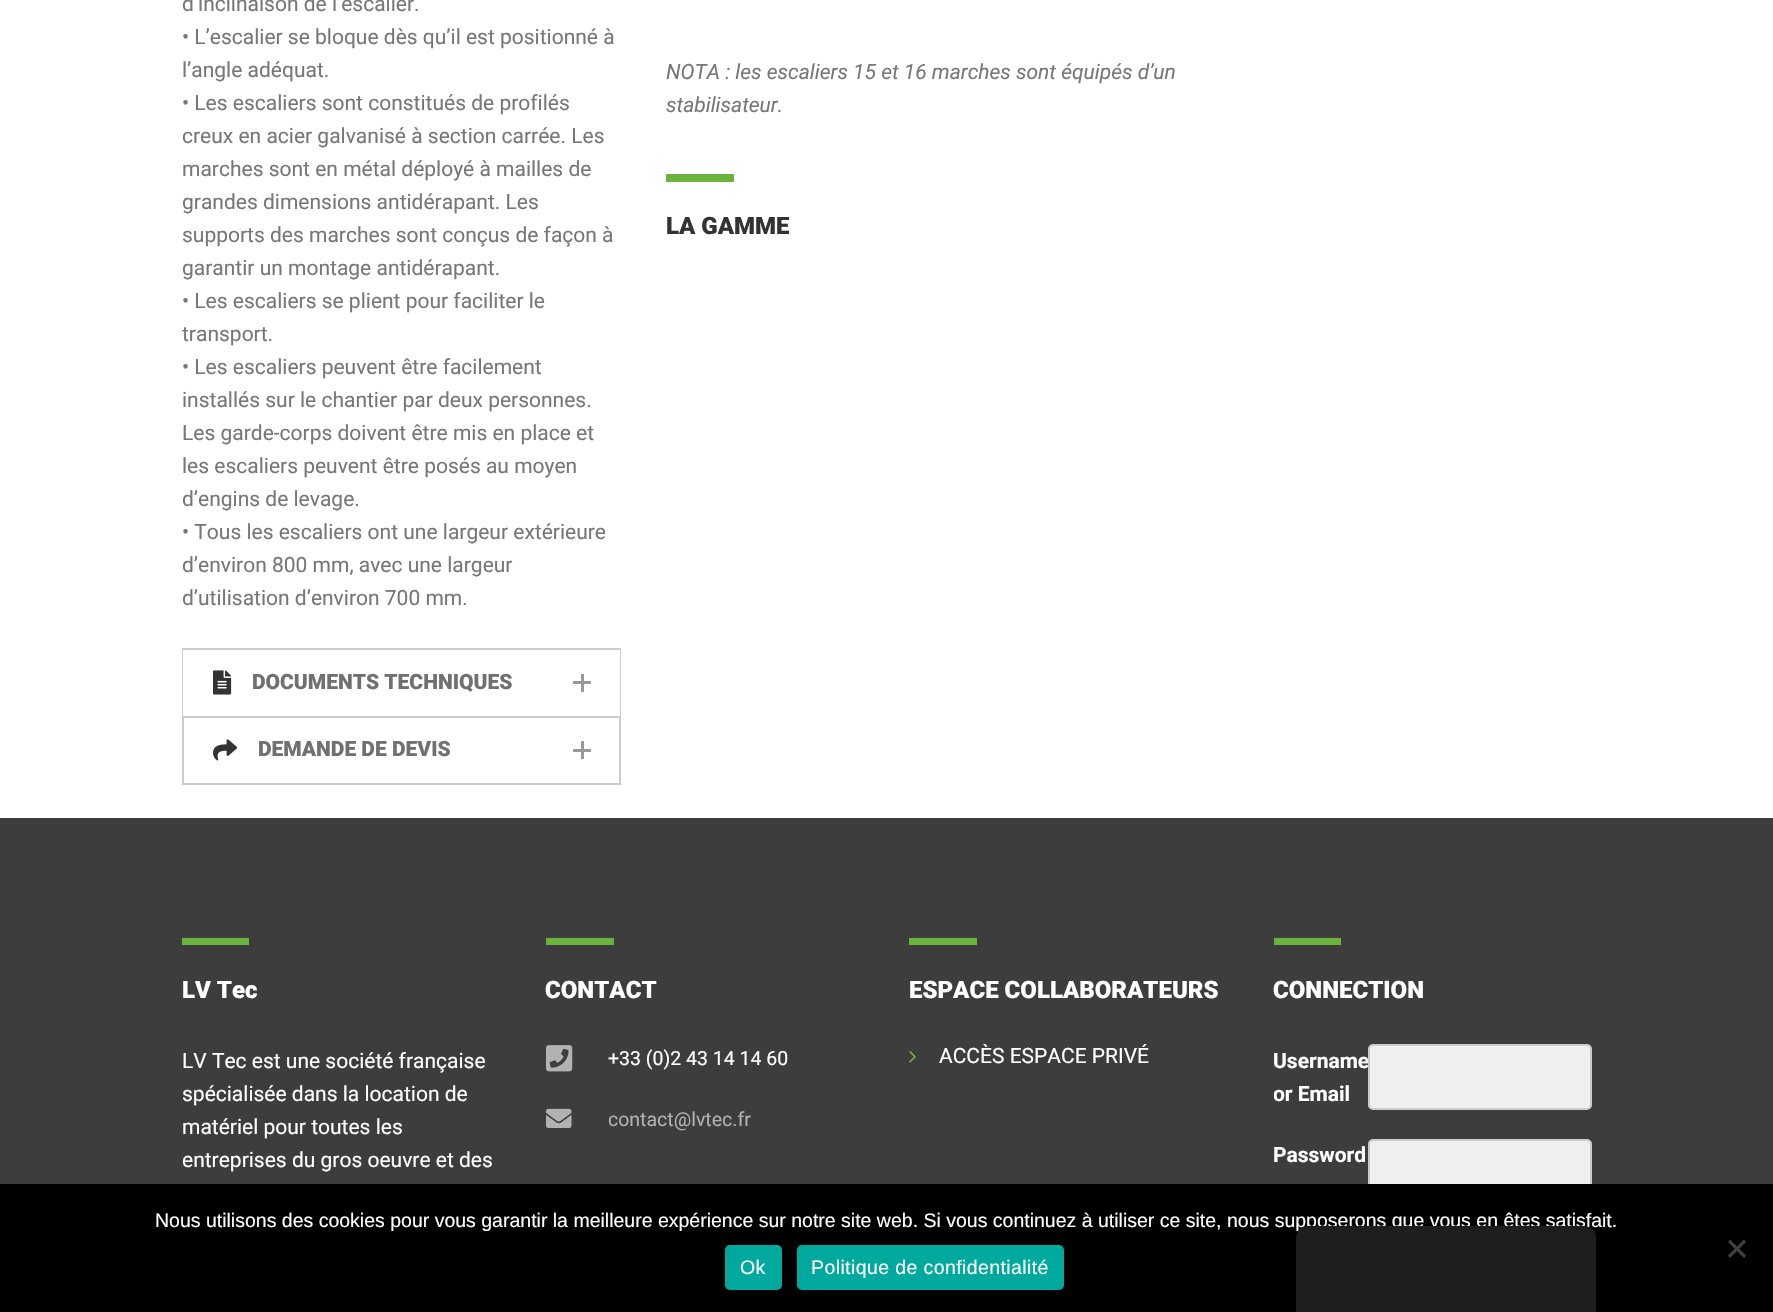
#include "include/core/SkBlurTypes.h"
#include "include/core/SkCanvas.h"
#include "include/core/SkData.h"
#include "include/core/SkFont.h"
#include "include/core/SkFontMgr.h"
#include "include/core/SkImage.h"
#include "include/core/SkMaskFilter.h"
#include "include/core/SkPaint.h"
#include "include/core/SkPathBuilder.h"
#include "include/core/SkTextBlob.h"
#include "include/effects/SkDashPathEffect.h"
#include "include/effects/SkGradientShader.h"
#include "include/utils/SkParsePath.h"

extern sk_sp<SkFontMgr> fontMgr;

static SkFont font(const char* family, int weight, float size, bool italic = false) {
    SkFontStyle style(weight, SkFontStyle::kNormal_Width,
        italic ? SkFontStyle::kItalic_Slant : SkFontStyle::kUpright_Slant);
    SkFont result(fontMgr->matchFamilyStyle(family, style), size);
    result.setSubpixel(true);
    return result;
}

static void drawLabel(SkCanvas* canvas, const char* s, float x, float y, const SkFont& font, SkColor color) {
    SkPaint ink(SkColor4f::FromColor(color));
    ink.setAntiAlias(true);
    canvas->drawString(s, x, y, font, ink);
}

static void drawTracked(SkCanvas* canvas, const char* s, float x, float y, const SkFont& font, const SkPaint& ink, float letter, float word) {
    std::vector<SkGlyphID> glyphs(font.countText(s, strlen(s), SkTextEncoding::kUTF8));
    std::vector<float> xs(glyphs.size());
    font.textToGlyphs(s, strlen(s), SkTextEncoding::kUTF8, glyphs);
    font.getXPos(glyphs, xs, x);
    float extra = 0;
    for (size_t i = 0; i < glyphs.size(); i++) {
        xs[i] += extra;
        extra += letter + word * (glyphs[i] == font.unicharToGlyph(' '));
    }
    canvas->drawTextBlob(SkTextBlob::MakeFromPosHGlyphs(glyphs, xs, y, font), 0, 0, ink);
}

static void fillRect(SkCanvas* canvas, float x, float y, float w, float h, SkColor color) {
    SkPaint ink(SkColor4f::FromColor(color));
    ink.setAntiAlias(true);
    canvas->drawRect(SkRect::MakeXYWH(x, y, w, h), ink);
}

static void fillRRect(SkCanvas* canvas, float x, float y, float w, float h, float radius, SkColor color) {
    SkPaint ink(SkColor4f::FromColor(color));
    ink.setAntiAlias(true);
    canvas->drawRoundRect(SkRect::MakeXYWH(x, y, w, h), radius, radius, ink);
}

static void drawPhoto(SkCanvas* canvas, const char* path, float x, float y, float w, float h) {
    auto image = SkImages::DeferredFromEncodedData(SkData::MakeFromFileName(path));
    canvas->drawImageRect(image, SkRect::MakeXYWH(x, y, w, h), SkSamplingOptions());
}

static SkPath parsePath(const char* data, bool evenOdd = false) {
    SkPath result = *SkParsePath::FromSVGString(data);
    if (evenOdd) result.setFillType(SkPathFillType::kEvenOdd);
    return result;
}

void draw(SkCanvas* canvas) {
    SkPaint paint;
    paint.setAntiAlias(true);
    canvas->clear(0xFFFFFFFF);
    SkFont font1 = font("Roboto", 400, 21);
    drawLabel(canvas, "d’inclinaison de l’escalier.", 182, 11, font1, 0xFF777777);
    drawLabel(canvas, "• L’escalier se bloque dès qu’il est positionné à", 182, 44, font1, 0xFF777777);
    drawLabel(canvas, "l’angle adéquat.", 182, 77, font1, 0xFF777777);
    drawLabel(canvas, "• Les escaliers sont constitués de profilés", 182, 110, font1, 0xFF777777);
    drawLabel(canvas, "creux en acier galvanisé à section carrée. Les", 182, 143, font1, 0xFF777777);
    drawLabel(canvas, "marches sont en métal déployé à mailles de", 182, 176, font1, 0xFF777777);
    drawLabel(canvas, "grandes dimensions antidérapant. Les", 182, 209, font1, 0xFF777777);
    drawLabel(canvas, "supports des marches sont conçus de façon à", 182, 242, font1, 0xFF777777);
    drawLabel(canvas, "garantir un montage antidérapant.", 182, 275, font1, 0xFF777777);
    drawLabel(canvas, "• Les escaliers se plient pour faciliter le", 182, 308, font1, 0xFF777777);
    drawLabel(canvas, "transport.", 182, 341, font1, 0xFF777777);
    drawLabel(canvas, "• Les escaliers peuvent être facilement", 182, 374, font1, 0xFF777777);
    drawLabel(canvas, "installés sur le chantier par deux personnes.", 182, 407, font1, 0xFF777777);
    drawLabel(canvas, "Les garde-corps doivent être mis en place et", 182, 440, font1, 0xFF777777);
    drawLabel(canvas, "les escaliers peuvent être posés au moyen", 182, 473, font1, 0xFF777777);
    drawLabel(canvas, "d’engins de levage.", 182, 506, font1, 0xFF777777);
    drawLabel(canvas, "• Tous les escaliers ont une largeur extérieure", 182, 539, font1, 0xFF777777);
    drawLabel(canvas, "d’environ 800 mm, avec une largeur", 182, 572, font1, 0xFF777777);
    drawLabel(canvas, "d’utilisation d’environ 700 mm.", 182, 605, font1, 0xFF777777);
    paint.setColor(0xFFCCCCCC);
    canvas->drawPath(parsePath("M182 648H621L620 650H183Z"), paint);
    paint.setColor(0x33000000);
    canvas->drawPath(parsePath("M621 648V716H620V650Z"), paint);
    canvas->drawPath(parsePath("M182 716V648L183 650V716Z"), paint);
    drawPhoto(canvas, "assets/img1.png", 213, 670, 19, 25);
    SkFont font2 = font("Roboto", 900, 21);
    drawLabel(canvas, "DOCUMENTS TECHNIQUES", 252, 689, font2, 0xFF707070);
    fillRect(canvas, 573, 681, 18, 3, 0xFF999999);
    fillRect(canvas, 581, 674, 3, 18, 0xFF999999);
    paint.setStroke(true);
    paint.setStrokeWidth(2);
    paint.setColor(0xFFCCCCCC);
    canvas->drawRect(SkRect::MakeXYWH(183, 717, 437, 67), paint);
    drawPhoto(canvas, "assets/img2.png", 213, 739, 25, 22);
    drawLabel(canvas, "DEMANDE DE DEVIS", 258, 756, font2, 0xFF707070);
    fillRect(canvas, 573, 749, 18, 3, 0xFF999999);
    fillRect(canvas, 581, 741, 3, 18, 0xFF999999);
    SkFont font3 = font("Roboto", 400, 21, true);
    drawLabel(canvas, "NOTA : les escaliers 15 et 16 marches sont équipés d’un", 666, 79, font3, 0xFF777777);
    drawLabel(canvas, "stabilisateur.", 666, 112, font3, 0xFF777777);
    fillRect(canvas, 666, 174, 68, 8, 0xFF6AB33D);
    SkFont font4 = font("Roboto", 900, 24);
    drawLabel(canvas, "LA GAMME", 666, 234, font4, 0xFF333333);
    fillRect(canvas, 0, 818, 1773, 366, 0xFF3D3D3D);
    fillRect(canvas, 182, 938, 67, 7, 0xFF6AB33D);
    drawLabel(canvas, "LV Tec", 182, 998, font4, 0xFFFFFFFF);
    drawLabel(canvas, "LV Tec est une société française", 182, 1068, font1, 0xFFFFFFFF);
    drawLabel(canvas, "spécialisée dans la location de", 182, 1101, font1, 0xFFFFFFFF);
    drawLabel(canvas, "matériel pour toutes les", 182, 1134, font1, 0xFFFFFFFF);
    drawLabel(canvas, "entreprises du gros oeuvre et des", 182, 1167, font1, 0xFFFFFFFF);
    fillRect(canvas, 546, 938, 68, 7, 0xFF6AB33D);
    drawLabel(canvas, "CONTACT", 545, 998, font4, 0xFFFFFFFF);
    drawPhoto(canvas, "assets/img3.png", 546, 1045, 27, 27);
    SkFont font5 = font("Roboto", 400, 19.5f);
    drawLabel(canvas, "+33 (0)2 43 14 14 60", 608, 1065, font5, 0xFFFFFFFF);
    drawPhoto(canvas, "assets/img4.png", 546, 1108, 26, 20);
    drawLabel(canvas, "contact@lvtec.fr", 608, 1126, font5, 0xFFB1B1B1);
    fillRect(canvas, 909, 938, 68, 7, 0xFF6AB33D);
    drawLabel(canvas, "ESPACE COLLABORATEURS", 909, 998, font4, 0xFFFFFFFF);
    drawPhoto(canvas, "assets/img5.png", 909, 1051, 7, 12);
    drawLabel(canvas, "ACCÈS ESPACE PRIVÉ", 939, 1063, font1, 0xFFFFFFFF);
    fillRect(canvas, 1274, 938, 67, 7, 0xFF6AB33D);
    drawLabel(canvas, "CONNECTION", 1273, 998, font4, 0xFFFFFFFF);
    SkFont font6 = font("Roboto", 700, 21);
    drawLabel(canvas, "Username", 1273, 1068, font6, 0xFFFFFFFF);
    canvas->save();
    canvas->clipRect(SkRect::MakeXYWH(1274, 1044, 318, 95));
    drawLabel(canvas, "or Email", 1273, 1101, font6, 0xFFFFFFFF);
    canvas->restore();
    paint.setStroke(false);
    paint.setColor(0xFFEFEFEF);
    canvas->drawRoundRect(SkRect::MakeXYWH(1369, 1045, 222, 64), 4, 4, paint);
    paint.setStroke(true);
    paint.setColor(0xFFCCCCCC);
    canvas->drawRoundRect(SkRect::MakeXYWH(1369, 1045, 222, 64), 4, 4, paint);
    drawLabel(canvas, "Password", 1273, 1162, font6, 0xFFFFFFFF);
    paint.setStroke(false);
    paint.setColor(0xFFEFEFEF);
    canvas->drawRoundRect(SkRect::MakeXYWH(1369, 1140, 222, 64), 4, 4, paint);
    paint.setStroke(true);
    paint.setColor(0xFFCCCCCC);
    canvas->drawRoundRect(SkRect::MakeXYWH(1369, 1140, 222, 64), 4, 4, paint);
    fillRect(canvas, 0, 1184, 1773, 128, 0xFF000000);
    paint.setStroke(false);
    paint.setColor(0x40000000);
    paint.setMaskFilter(SkMaskFilter::MakeBlur(kNormal_SkBlurStyle, 6));
    canvas->drawRoundRect(SkRect::MakeXYWH(1296, 1226, 300, 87), 12, 12, paint);
    paint.setMaskFilter(nullptr);
    SkFont font7 = font("Liberation Sans", 400, 19.5f);
    drawLabel(canvas, "Nous utilisons des cookies pour vous garantir la meilleure expérience sur notre site web. Si vous continuez à utiliser ce site, nous supposerons que vous en êtes satisfait.", 155, 1227, font7, 0xFFFFFFFF);
    paint.setColor(0xFF1E1E1E);
    canvas->drawPath(parsePath("M1308 1226H1584C1590.5 1226 1596 1231.5 1596 1238V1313H1296V1238C1296 1231.5 1301.5 1226 1308 1226Z"), paint);
    paint.setColor(0xFF404040);
    canvas->drawPath(parsePath("M1744 1239.5L1746 1242L1730 1258L1728 1255.5Z"), paint);
    canvas->drawPath(parsePath("M1728 1242L1730 1239.5L1746 1255.5L1744 1258Z"), paint);
    fillRRect(canvas, 725, 1245, 57, 45, 5, 0xFF00A99D);
    paint.setColor(0xFFFFFFFF);
    drawTracked(canvas, "Ok", 740, 1274, font7, paint, 0.4f, 0);
    fillRRect(canvas, 797, 1245, 267, 45, 5, 0xFF00A99D);
    drawTracked(canvas, "Politique de confidentialité", 811, 1274, font7, paint, 0.4f, 0);
}
